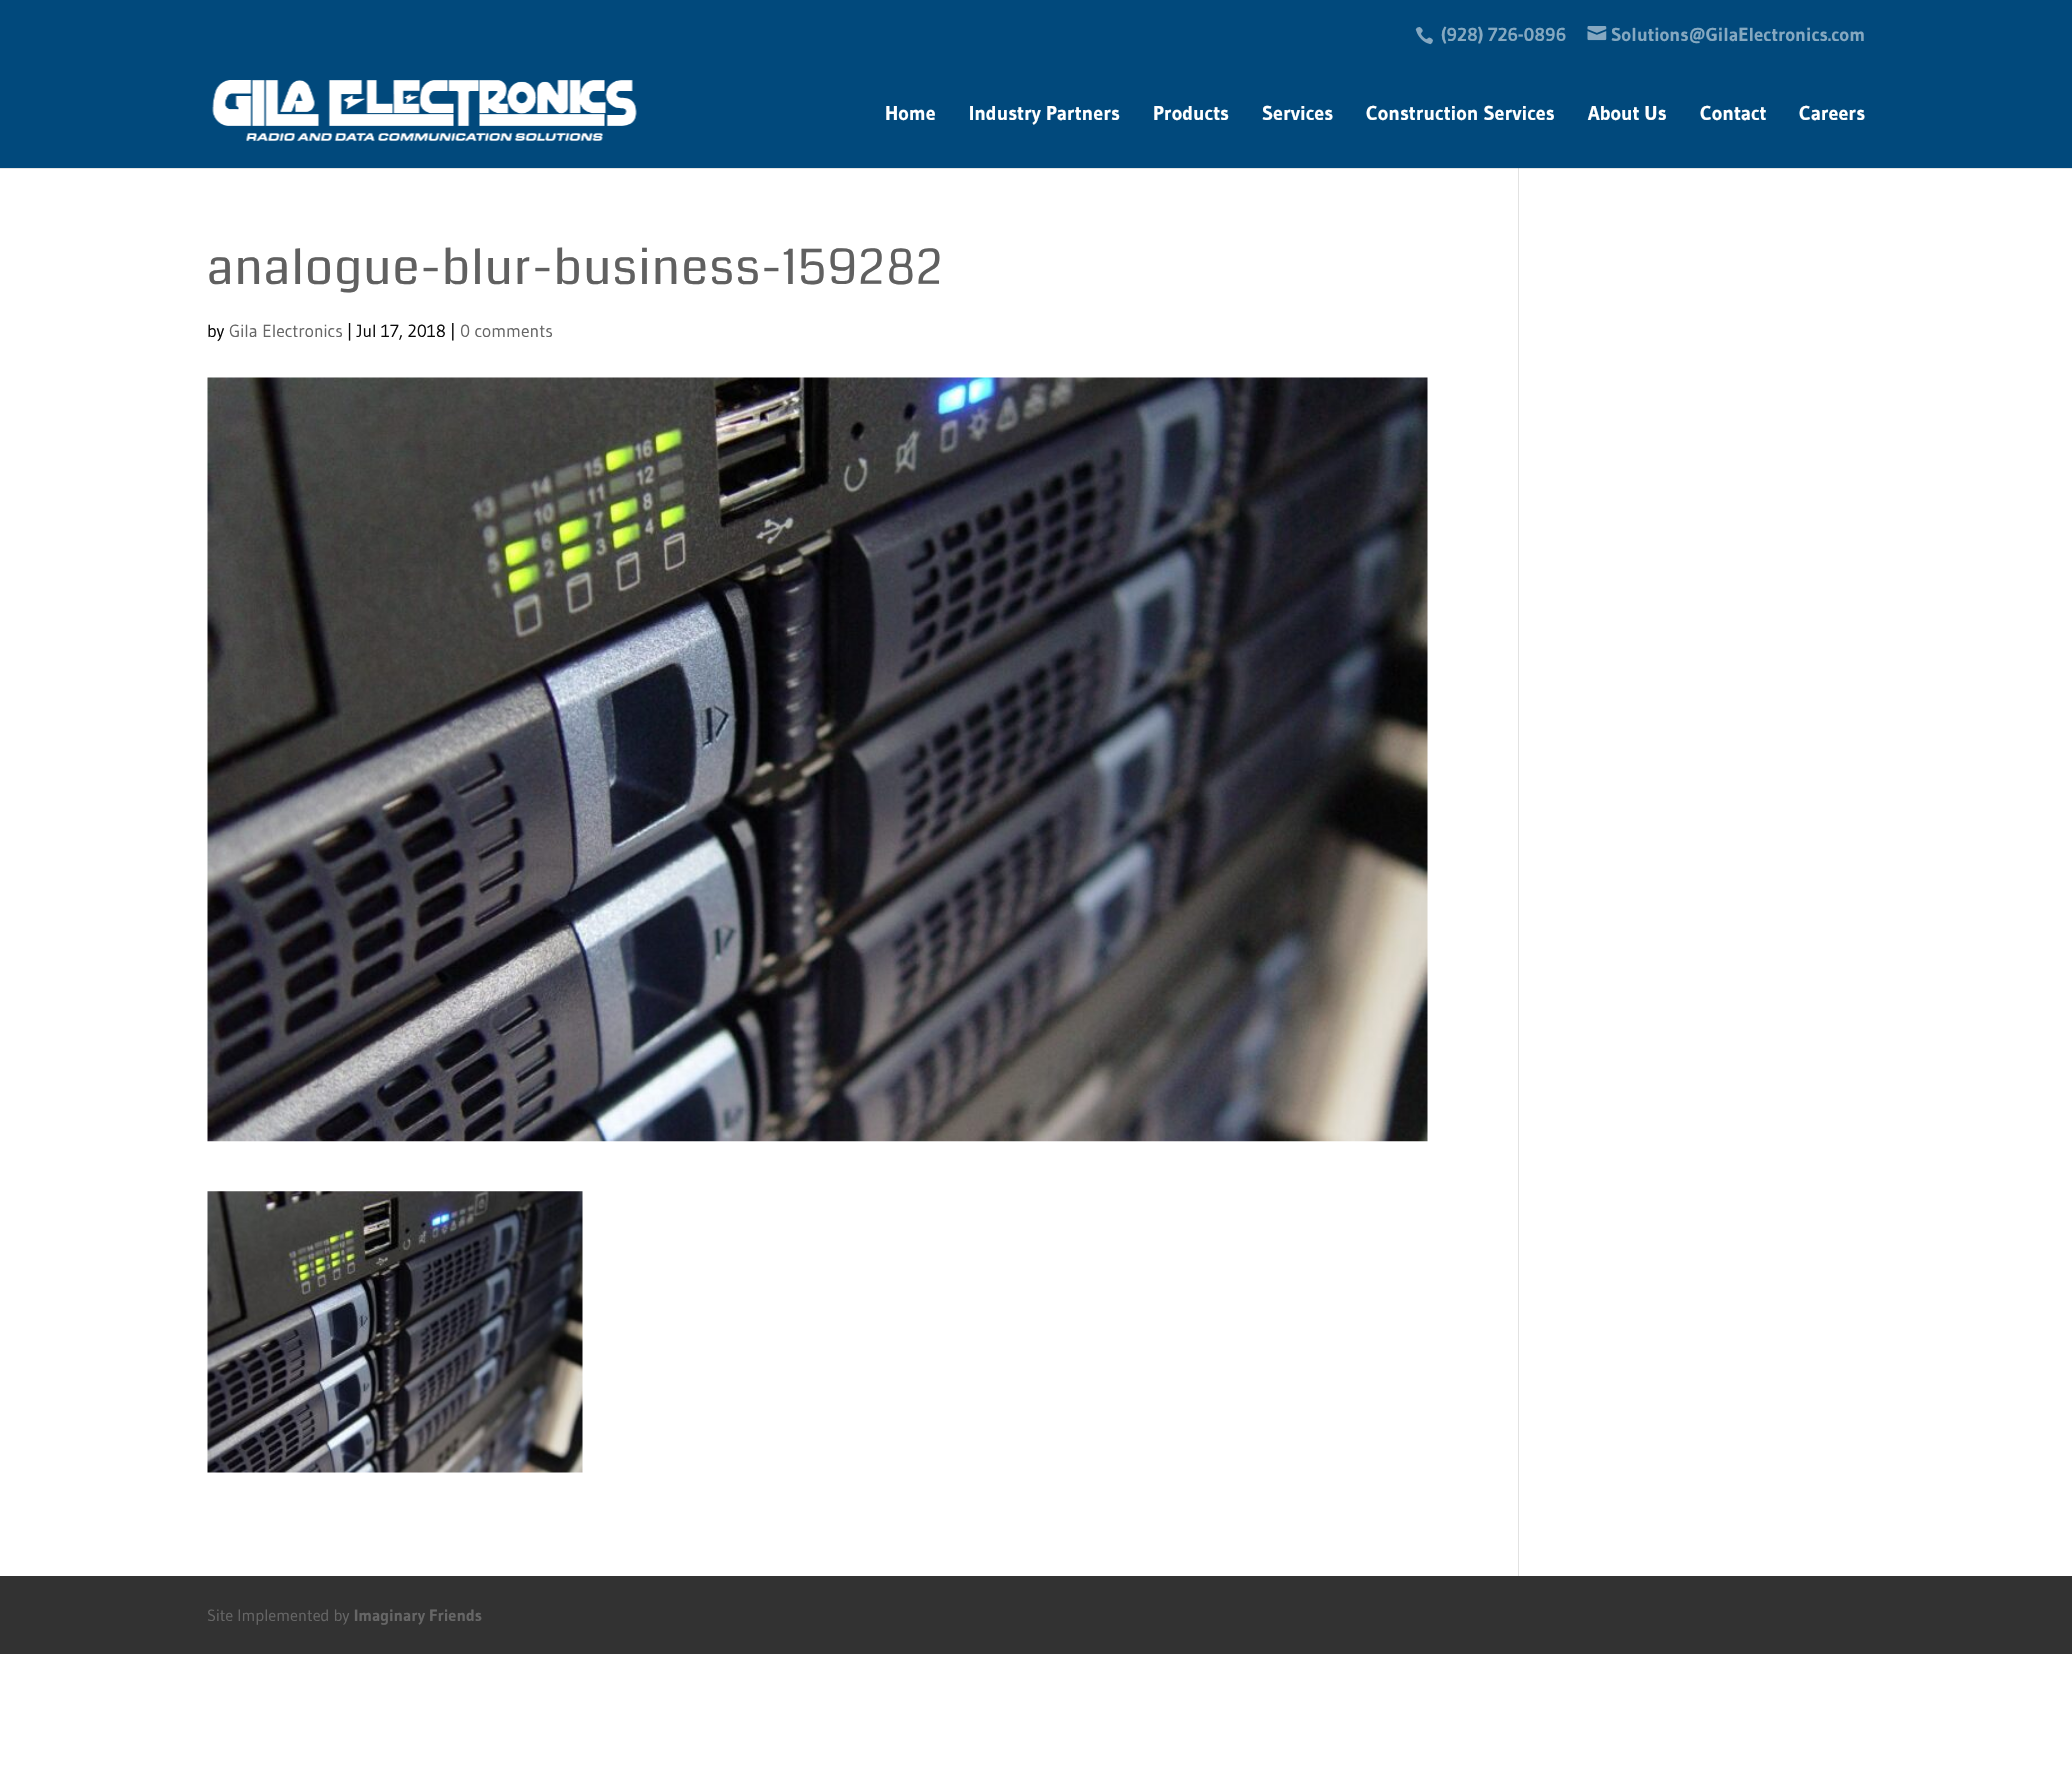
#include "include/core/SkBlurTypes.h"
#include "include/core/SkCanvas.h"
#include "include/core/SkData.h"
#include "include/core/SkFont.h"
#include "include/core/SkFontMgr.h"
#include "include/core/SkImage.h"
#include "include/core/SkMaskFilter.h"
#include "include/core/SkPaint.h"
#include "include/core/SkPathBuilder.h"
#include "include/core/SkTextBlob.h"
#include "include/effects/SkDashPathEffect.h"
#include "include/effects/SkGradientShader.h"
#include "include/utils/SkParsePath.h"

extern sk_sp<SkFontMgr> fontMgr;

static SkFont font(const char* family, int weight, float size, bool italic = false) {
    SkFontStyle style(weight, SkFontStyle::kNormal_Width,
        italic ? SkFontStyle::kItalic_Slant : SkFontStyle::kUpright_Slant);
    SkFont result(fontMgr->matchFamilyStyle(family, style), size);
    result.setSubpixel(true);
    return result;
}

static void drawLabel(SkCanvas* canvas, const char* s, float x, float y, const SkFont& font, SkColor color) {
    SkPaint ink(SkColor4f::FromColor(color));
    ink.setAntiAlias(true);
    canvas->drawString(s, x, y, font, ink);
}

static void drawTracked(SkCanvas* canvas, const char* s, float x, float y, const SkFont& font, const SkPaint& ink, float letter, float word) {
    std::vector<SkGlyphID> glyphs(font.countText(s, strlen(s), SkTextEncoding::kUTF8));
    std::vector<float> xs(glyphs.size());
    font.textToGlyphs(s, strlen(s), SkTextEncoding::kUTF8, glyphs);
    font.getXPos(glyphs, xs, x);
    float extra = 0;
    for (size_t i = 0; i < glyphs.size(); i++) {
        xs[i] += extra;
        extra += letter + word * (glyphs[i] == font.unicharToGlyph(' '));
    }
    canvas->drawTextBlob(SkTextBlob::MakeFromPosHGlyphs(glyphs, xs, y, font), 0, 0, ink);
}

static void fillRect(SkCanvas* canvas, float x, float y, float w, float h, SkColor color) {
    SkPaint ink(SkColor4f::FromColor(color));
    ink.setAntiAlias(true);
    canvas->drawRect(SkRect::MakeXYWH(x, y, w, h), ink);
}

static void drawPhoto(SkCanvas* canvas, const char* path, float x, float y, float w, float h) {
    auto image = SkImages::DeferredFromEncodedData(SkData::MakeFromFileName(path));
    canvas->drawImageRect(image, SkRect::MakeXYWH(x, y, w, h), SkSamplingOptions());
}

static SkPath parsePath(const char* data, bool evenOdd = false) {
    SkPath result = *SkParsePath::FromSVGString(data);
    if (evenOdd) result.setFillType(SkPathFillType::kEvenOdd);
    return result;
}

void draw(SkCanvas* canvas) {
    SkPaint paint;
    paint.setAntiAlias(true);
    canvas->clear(0xFFFFFFFF);
    fillRect(canvas, 0, 0, 2072, 168, 0xFF01497C);
    drawPhoto(canvas, "assets/img1.png", 1415, 27, 18, 18);
    SkFont font1 = font("Gudea", 700, 18.75f);
    drawLabel(canvas, "(928) 726-0896", 1441, 41, font1, 0xFF85A8C0);
    drawPhoto(canvas, "assets/img2.png", 1587, 26, 20, 15);
    drawLabel(canvas, "Solutions@GilaElectronics.com", 1611, 41, font1, 0xFF85A8C0);
    fillRect(canvas, 1518, 168, 1, 1408, 0xFFE2E2E2);
    paint.setColor(0x1A000000);
    canvas->drawPath(parsePath("M0 168V169H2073V59H2072V168Z"), paint);
    drawPhoto(canvas, "assets/img3.png", 212, 80, 425, 61);
    SkFont font2 = font("Gudea", 700, 20);
    drawLabel(canvas, "Home", 885, 120, font2, 0xFFFFFFFF);
    drawLabel(canvas, "Industry Partners", 969, 120, font2, 0xFFFFFFFF);
    drawLabel(canvas, "Products", 1153, 120, font2, 0xFFFFFFFF);
    drawLabel(canvas, "Services", 1262, 120, font2, 0xFFFFFFFF);
    drawLabel(canvas, "Construction Services", 1366, 120, font2, 0xFFFFFFFF);
    drawLabel(canvas, "About Us", 1588, 120, font2, 0xFFFFFFFF);
    drawLabel(canvas, "Contact", 1700, 120, font2, 0xFFFFFFFF);
    drawLabel(canvas, "Careers", 1799, 120, font2, 0xFFFFFFFF);
    SkFont font3 = font("Coda", 400, 48.75f);
    paint.setColor(0xFF606060);
    drawTracked(canvas, "analogue-blur-business-159282", 207, 284, font3, paint, 1.25f, 0);
    SkFont font4 = font("Gudea", 400, 17.5f);
    drawLabel(canvas, "by", 207, 337, font4, 0xFF0A0A0A);
    drawLabel(canvas, "Gila Electronics", 229, 337, font4, 0xFF666666);
    drawLabel(canvas, "| Jul 17, 2018 |", 347, 337, font4, 0xFF0A0A0A);
    drawLabel(canvas, "0 comments", 460, 337, font4, 0xFF666666);
    drawPhoto(canvas, "assets/img4.png", 207, 377, 1221, 765);
    drawPhoto(canvas, "assets/img5.png", 207, 1191, 376, 282);
    fillRect(canvas, 0, 1576, 2072, 78, 0xFF323232);
    SkFont font5 = font("Gudea", 400, 16.25f);
    drawLabel(canvas, "Site Implemented by", 207, 1621, font5, 0xFF666666);
    SkFont font6 = font("Gudea", 700, 16.25f);
    drawLabel(canvas, "Imaginary Friends", 354, 1621, font6, 0xFF666666);
}
